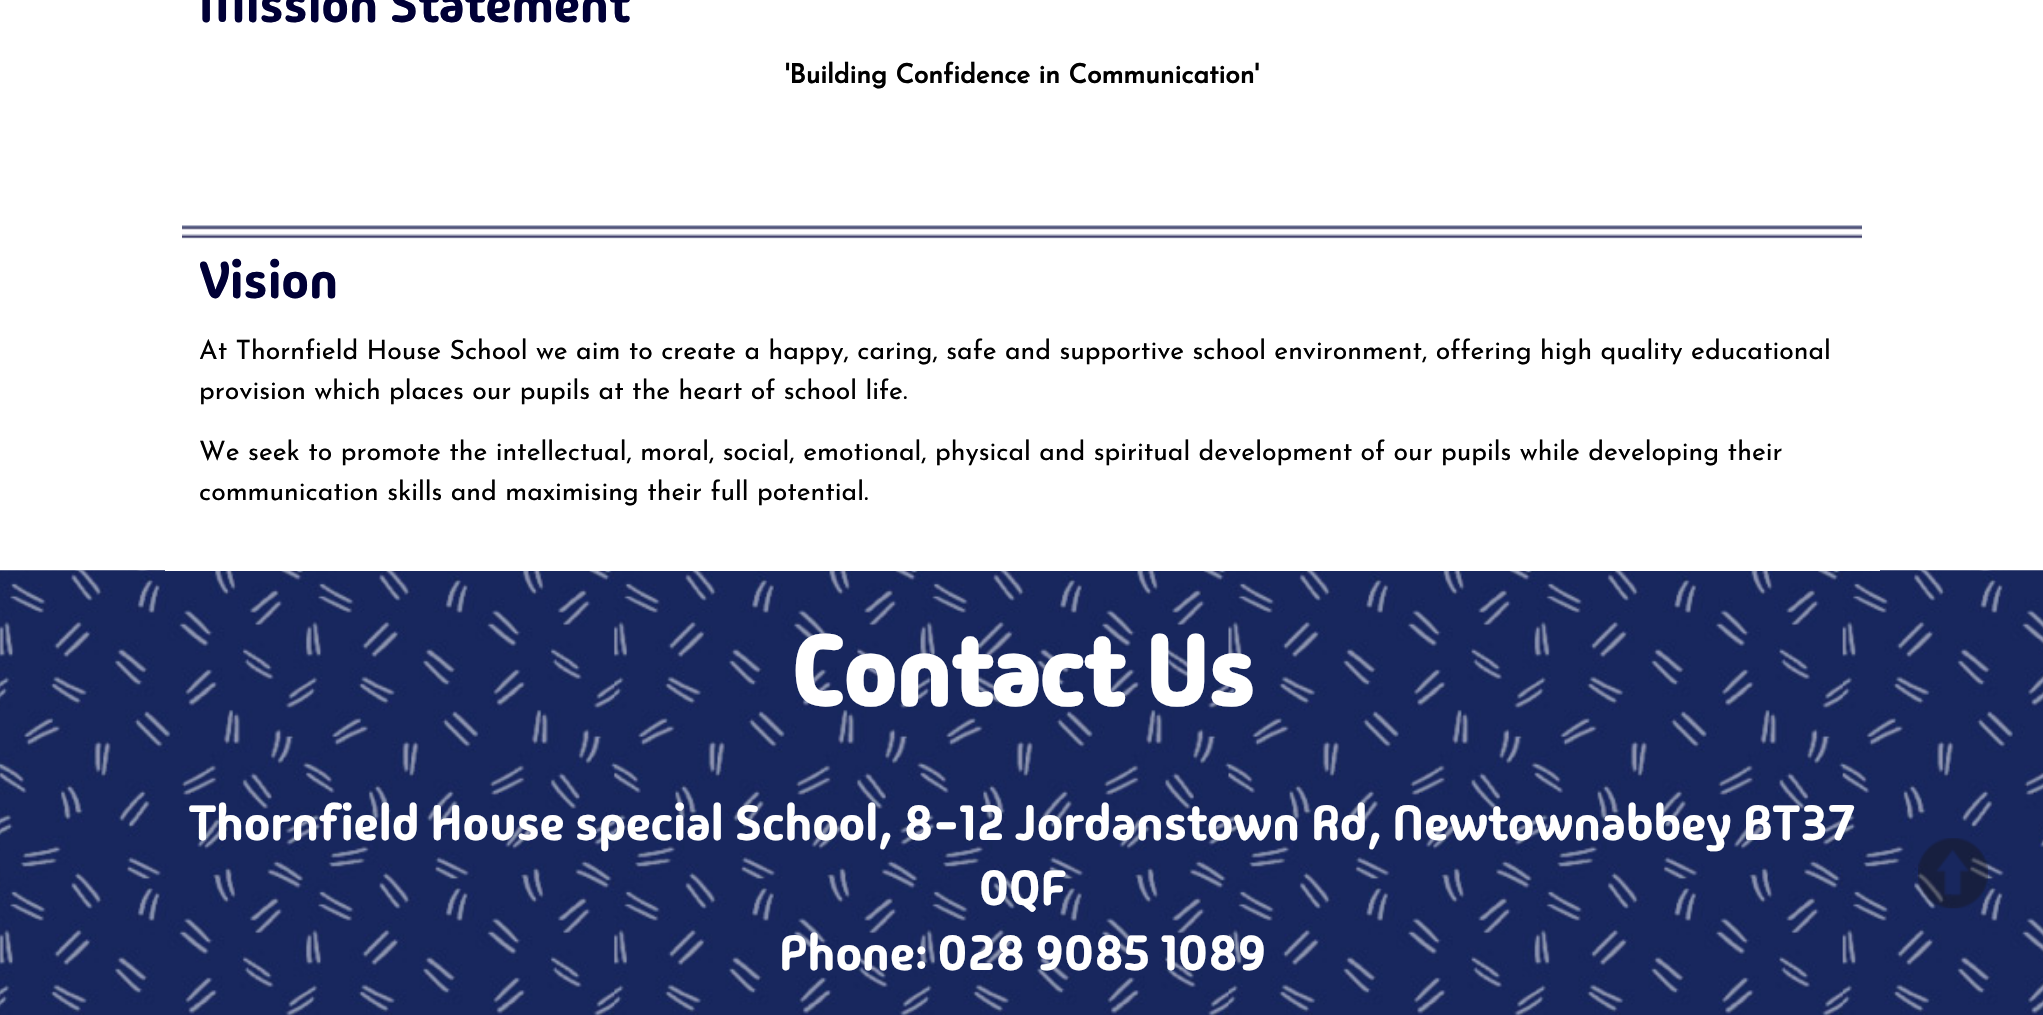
#include "include/core/SkBlurTypes.h"
#include "include/core/SkCanvas.h"
#include "include/core/SkData.h"
#include "include/core/SkFont.h"
#include "include/core/SkFontMgr.h"
#include "include/core/SkImage.h"
#include "include/core/SkMaskFilter.h"
#include "include/core/SkPaint.h"
#include "include/core/SkPathBuilder.h"
#include "include/core/SkTextBlob.h"
#include "include/effects/SkDashPathEffect.h"
#include "include/effects/SkGradientShader.h"
#include "include/utils/SkParsePath.h"

extern sk_sp<SkFontMgr> fontMgr;

static SkFont font(const char* family, int weight, float size, bool italic = false) {
    SkFontStyle style(weight, SkFontStyle::kNormal_Width,
        italic ? SkFontStyle::kItalic_Slant : SkFontStyle::kUpright_Slant);
    SkFont result(fontMgr->matchFamilyStyle(family, style), size);
    result.setSubpixel(true);
    return result;
}

static void drawLabel(SkCanvas* canvas, const char* s, float x, float y, const SkFont& font, SkColor color) {
    SkPaint ink(SkColor4f::FromColor(color));
    ink.setAntiAlias(true);
    canvas->drawString(s, x, y, font, ink);
}

static void fillRect(SkCanvas* canvas, float x, float y, float w, float h, SkColor color) {
    SkPaint ink(SkColor4f::FromColor(color));
    ink.setAntiAlias(true);
    canvas->drawRect(SkRect::MakeXYWH(x, y, w, h), ink);
}

static void drawPhoto(SkCanvas* canvas, const char* path, float x, float y, float w, float h) {
    auto image = SkImages::DeferredFromEncodedData(SkData::MakeFromFileName(path));
    canvas->drawImageRect(image, SkRect::MakeXYWH(x, y, w, h), SkSamplingOptions());
}

void draw(SkCanvas* canvas) {
    SkPaint paint;
    paint.setAntiAlias(true);
    canvas->clear(0xFFFFFFFF);
    drawPhoto(canvas, "assets/img2.png", 0, 570, 2043, 445);
    fillRect(canvas, 165, 570, 1715, 1, 0xFFFFFFFF);
    SkFont font1 = font("Madimi One", 400, 51.5f);
    drawLabel(canvas, "Mission Statement", 199, 22, font1, 0xFF000036);
    SkFont font2 = font("Josefin Sans", 700, 26.6f);
    drawLabel(canvas, "'Building Confidence in Communication'", 785, 83, font2, 0xFF000000);
    drawPhoto(canvas, "assets/img1.png", 182, 225, 1680, 14);
    drawLabel(canvas, "Vision", 199, 298, font1, 0xFF000036);
    SkFont font3 = font("Josefin Sans", 100, 26.6f);
    drawLabel(canvas, "At Thornfield House School we aim to create a happy, caring, safe and supportive school environment, offering high quality educational", 199, 359, font3, 0xFF000000);
    drawLabel(canvas, "provision which places our pupils at the heart of school life.", 199, 399, font3, 0xFF000000);
    drawLabel(canvas, "We seek to promote the intellectual, moral, social, emotional, physical and spiritual development of our pupils while developing their", 199, 460, font3, 0xFF000000);
    drawLabel(canvas, "communication skills and maximising their full potential.", 199, 500, font3, 0xFF000000);
    SkFont font4 = font("Madimi One", 700, 98);
    drawLabel(canvas, "Contact Us", 791, 706, font4, 0xFFFFFFFF);
    SkFont font5 = font("Madimi One", 400, 49.3f);
    drawLabel(canvas, "Thornfield House special School, 8-12 Jordanstown Rd, Newtownabbey BT37", 189, 840, font5, 0xFFFFFFFF);
    drawLabel(canvas, "0QF", 979, 905, font5, 0xFFFFFFFF);
    drawLabel(canvas, "Phone: 028 9085 1089", 779, 970, font5, 0xFFFFFFFF);
    drawPhoto(canvas, "assets/img3.png", 1918, 838, 70, 71);
}
